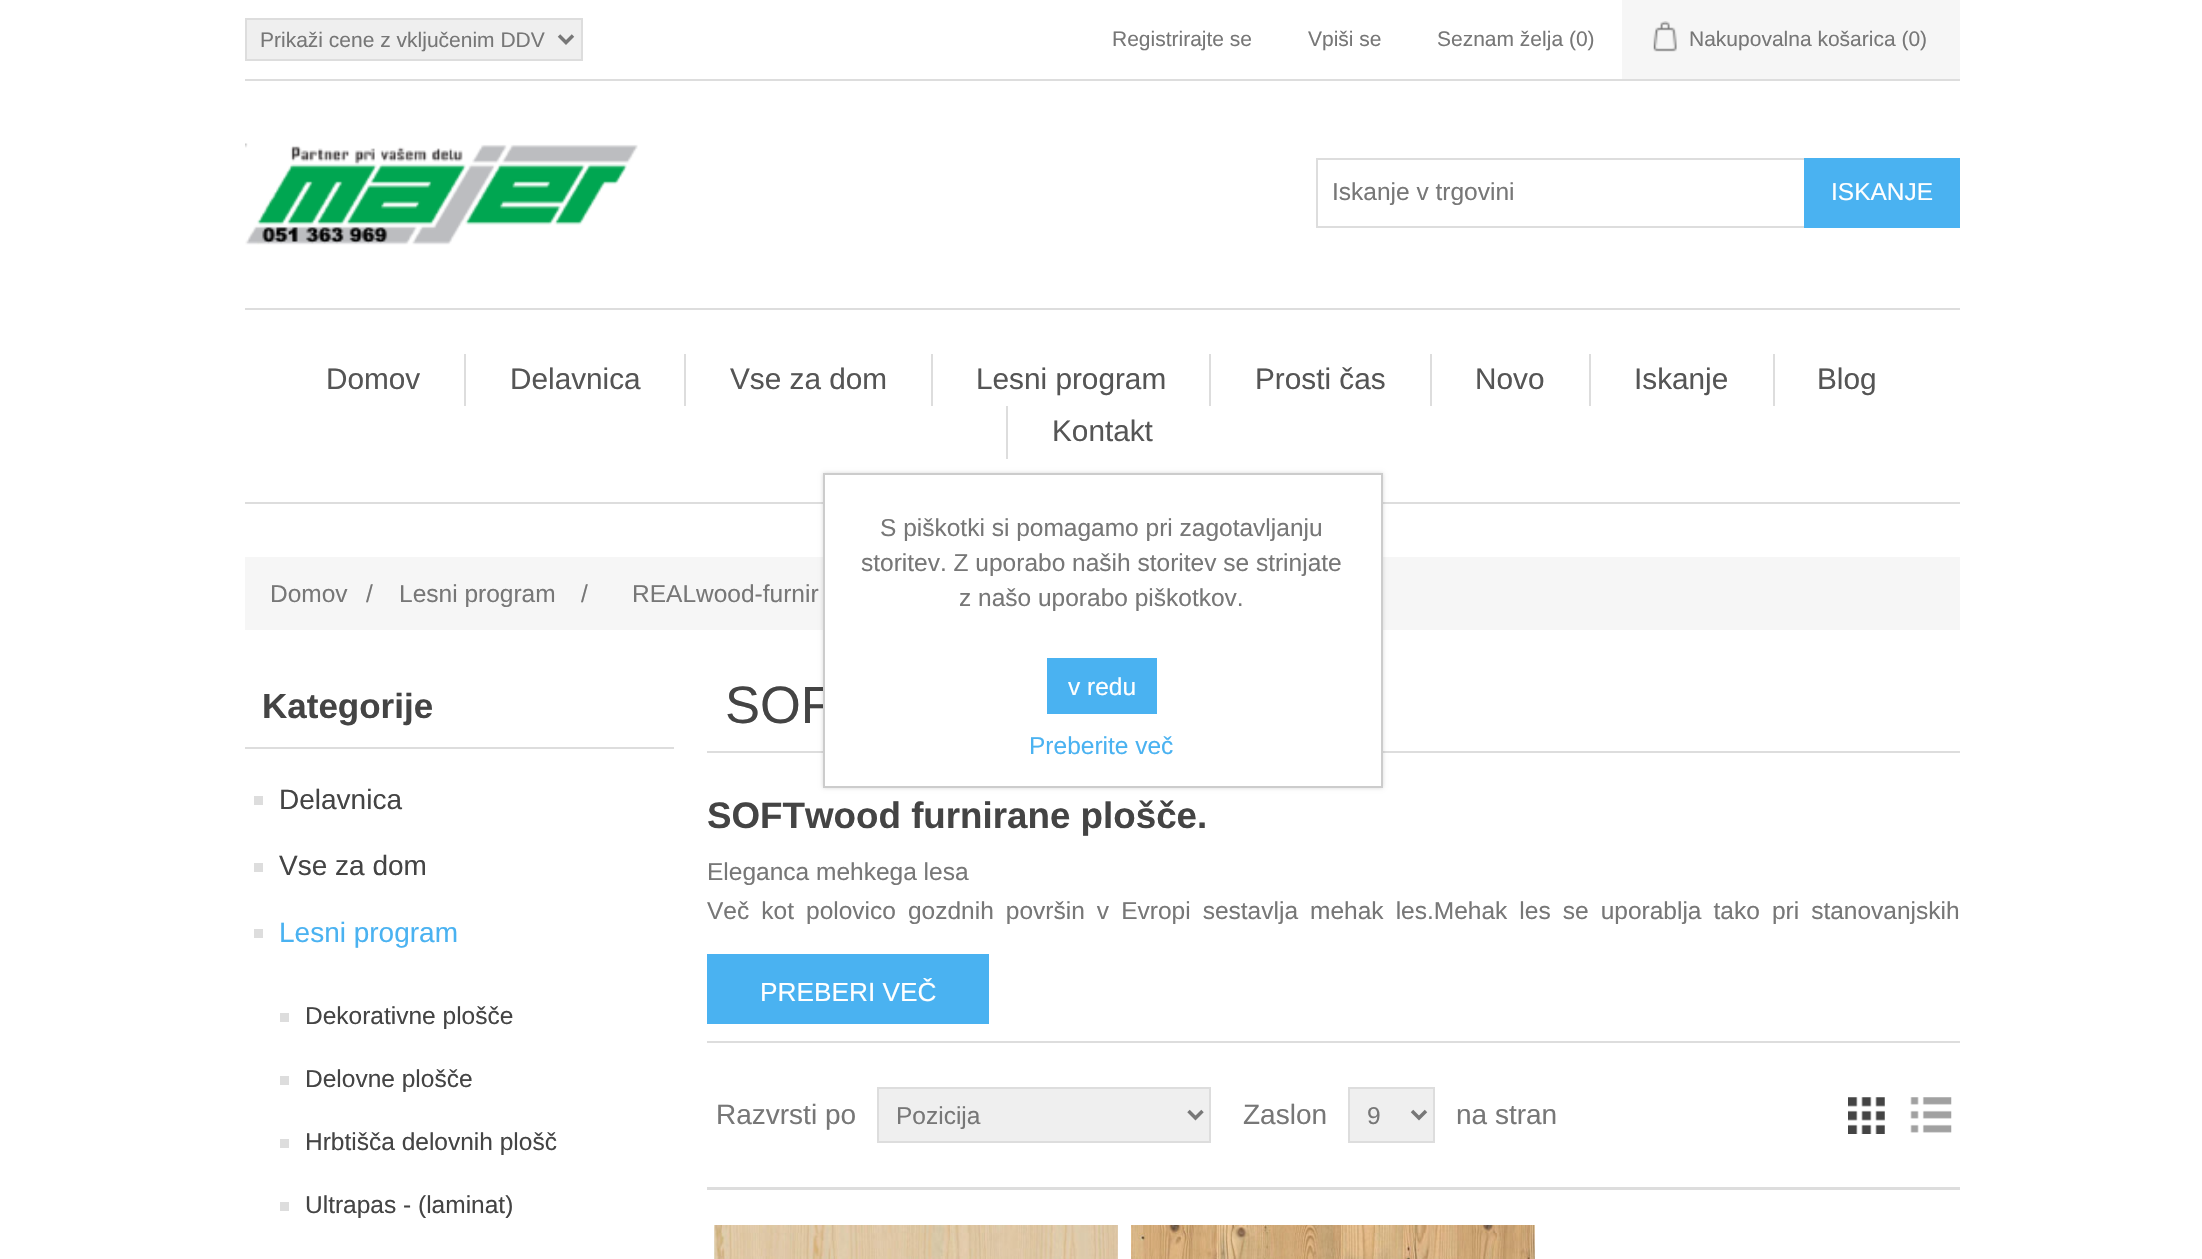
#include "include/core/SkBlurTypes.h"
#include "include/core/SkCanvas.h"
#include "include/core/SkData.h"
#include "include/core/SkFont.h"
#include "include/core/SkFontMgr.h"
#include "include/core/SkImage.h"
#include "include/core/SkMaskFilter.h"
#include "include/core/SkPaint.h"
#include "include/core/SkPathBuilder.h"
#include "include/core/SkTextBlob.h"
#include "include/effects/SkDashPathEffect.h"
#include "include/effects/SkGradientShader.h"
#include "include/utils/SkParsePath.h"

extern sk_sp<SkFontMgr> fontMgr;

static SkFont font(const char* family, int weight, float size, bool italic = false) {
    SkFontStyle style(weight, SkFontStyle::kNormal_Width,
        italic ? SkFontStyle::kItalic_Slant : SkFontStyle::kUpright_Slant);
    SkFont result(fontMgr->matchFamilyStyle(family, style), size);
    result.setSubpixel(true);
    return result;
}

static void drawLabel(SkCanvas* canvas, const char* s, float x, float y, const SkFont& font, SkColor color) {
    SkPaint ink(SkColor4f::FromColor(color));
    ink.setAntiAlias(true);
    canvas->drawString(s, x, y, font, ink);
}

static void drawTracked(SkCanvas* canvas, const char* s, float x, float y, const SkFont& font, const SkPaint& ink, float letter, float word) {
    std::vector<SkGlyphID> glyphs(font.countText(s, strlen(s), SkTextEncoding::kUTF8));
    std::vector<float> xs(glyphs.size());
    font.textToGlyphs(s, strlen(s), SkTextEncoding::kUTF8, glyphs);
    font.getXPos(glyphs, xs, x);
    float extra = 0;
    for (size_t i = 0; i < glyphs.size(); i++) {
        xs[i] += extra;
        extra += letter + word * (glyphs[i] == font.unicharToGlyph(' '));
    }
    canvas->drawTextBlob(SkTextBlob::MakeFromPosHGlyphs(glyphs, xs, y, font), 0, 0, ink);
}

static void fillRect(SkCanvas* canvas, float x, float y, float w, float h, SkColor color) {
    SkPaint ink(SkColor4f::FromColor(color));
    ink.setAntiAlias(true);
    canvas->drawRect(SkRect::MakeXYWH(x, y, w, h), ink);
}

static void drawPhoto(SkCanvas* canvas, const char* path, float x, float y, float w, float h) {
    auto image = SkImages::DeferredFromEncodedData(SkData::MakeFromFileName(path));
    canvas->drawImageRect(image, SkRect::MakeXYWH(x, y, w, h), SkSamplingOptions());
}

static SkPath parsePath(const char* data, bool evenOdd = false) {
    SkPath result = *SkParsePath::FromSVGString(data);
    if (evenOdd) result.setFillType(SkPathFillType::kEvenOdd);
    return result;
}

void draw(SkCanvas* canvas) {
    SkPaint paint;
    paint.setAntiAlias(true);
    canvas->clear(0xFFFFFFFF);
    fillRect(canvas, 245, 79, 1715, 2, 0xFFDDDDDD);
    paint.setColor(0xFFEFEFEF);
    canvas->drawRect(SkRect::MakeXYWH(246, 19, 336, 41), paint);
    paint.setStroke(true);
    paint.setStrokeWidth(2);
    paint.setColor(0xFFDDDDDD);
    canvas->drawRect(SkRect::MakeXYWH(246, 19, 336, 41), paint);
    paint.setStrokeWidth(3.5f);
    paint.setColor(0xFF777777);
    canvas->drawPath(parsePath("M559 35.5L566 42.5L573 35.5"), paint);
    SkFont font1 = font("Liberation Sans", 400, 21);
    drawLabel(canvas, "Prikaži cene z vključenim DDV", 260, 47, font1, 0xFF777777);
    drawLabel(canvas, "Registrirajte se", 1112, 46, font1, 0xFF777777);
    drawLabel(canvas, "Vpiši se", 1308, 46, font1, 0xFF777777);
    drawLabel(canvas, "Seznam želja (0)", 1437, 46, font1, 0xFF777777);
    fillRect(canvas, 1622, 0, 338, 79, 0xFFF6F6F6);
    drawPhoto(canvas, "assets/img1.png", 1653, 21, 24, 31);
    drawLabel(canvas, "Nakupovalna košarica (0)", 1689, 46, font1, 0xFF777777);
    drawPhoto(canvas, "assets/img2.png", 245, 143, 393, 102);
    paint.setStrokeWidth(2);
    paint.setColor(0xFFDDDDDD);
    canvas->drawRect(SkRect::MakeXYWH(1317, 159, 488, 68), paint);
    SkFont font2 = font("Liberation Sans", 400, 24.5f);
    drawLabel(canvas, "Iskanje v trgovini", 1332, 200, font2, 0xFF777777);
    fillRect(canvas, 1804, 158, 156, 70, 0xFF4AB2F1);
    drawLabel(canvas, "ISKANJE", 1831, 200, font2, 0xFFFFFFFF);
    fillRect(canvas, 245, 308, 1715, 2, 0xFFDDDDDD);
    fillRect(canvas, 245, 502, 1715, 2, 0xFFDDDDDD);
    SkFont font3 = font("Liberation Sans", 400, 29.75f);
    drawLabel(canvas, "Domov", 326, 389, font3, 0xFF555555);
    fillRect(canvas, 464, 354, 2, 52, 0xFFDDDDDD);
    drawLabel(canvas, "Delavnica", 510, 389, font3, 0xFF555555);
    fillRect(canvas, 684, 354, 2, 52, 0xFFDDDDDD);
    drawLabel(canvas, "Vse za dom", 730, 389, font3, 0xFF555555);
    fillRect(canvas, 931, 354, 2, 52, 0xFFDDDDDD);
    drawLabel(canvas, "Lesni program", 976, 389, font3, 0xFF555555);
    fillRect(canvas, 1209, 354, 2, 52, 0xFFDDDDDD);
    drawLabel(canvas, "Prosti čas", 1255, 389, font3, 0xFF555555);
    fillRect(canvas, 1430, 354, 2, 52, 0xFFDDDDDD);
    drawLabel(canvas, "Novo", 1475, 389, font3, 0xFF555555);
    fillRect(canvas, 1589, 354, 2, 52, 0xFFDDDDDD);
    drawLabel(canvas, "Iskanje", 1634, 389, font3, 0xFF555555);
    fillRect(canvas, 1773, 354, 2, 52, 0xFFDDDDDD);
    drawLabel(canvas, "Blog", 1817, 389, font3, 0xFF555555);
    fillRect(canvas, 1006, 406, 2, 53, 0xFFDDDDDD);
    drawLabel(canvas, "Kontakt", 1052, 441, font3, 0xFF555555);
    fillRect(canvas, 245, 557, 1715, 73, 0xFFF6F6F6);
    drawLabel(canvas, "Domov", 270, 602, font2, 0xFF777777);
    drawLabel(canvas, "/", 366, 602, font2, 0xFF777777);
    drawLabel(canvas, "Lesni program", 399, 602, font2, 0xFF777777);
    drawLabel(canvas, "/", 581, 602, font2, 0xFF777777);
    drawLabel(canvas, "REALwood-furnir", 632, 602, font2, 0xFF777777);
    fillRect(canvas, 245, 747, 429, 2, 0xFFDDDDDD);
    SkFont font4 = font("Liberation Sans", 700, 35);
    drawLabel(canvas, "Kategorije", 262, 718, font4, 0xFF444444);
    fillRect(canvas, 254, 796, 9, 9, 0xFFDDDDDD);
    SkFont font5 = font("Liberation Sans", 400, 28);
    drawLabel(canvas, "Delavnica", 279, 809, font5, 0xFF444444);
    fillRect(canvas, 254, 863, 9, 9, 0xFFDDDDDD);
    drawLabel(canvas, "Vse za dom", 279, 875, font5, 0xFF444444);
    fillRect(canvas, 254, 929, 9, 9, 0xFFDDDDDD);
    drawLabel(canvas, "Lesni program", 279, 942, font5, 0xFF4AB2F1);
    fillRect(canvas, 280, 1013, 9, 9, 0xFFDDDDDD);
    drawLabel(canvas, "Dekorativne plošče", 305, 1024, font2, 0xFF444444);
    fillRect(canvas, 280, 1076, 9, 9, 0xFFDDDDDD);
    drawLabel(canvas, "Delovne plošče", 305, 1087, font2, 0xFF444444);
    fillRect(canvas, 280, 1139, 9, 9, 0xFFDDDDDD);
    drawLabel(canvas, "Hrbtišča delovnih plošč", 305, 1150, font2, 0xFF444444);
    fillRect(canvas, 280, 1202, 9, 9, 0xFFDDDDDD);
    drawLabel(canvas, "Ultrapas - (laminat)", 305, 1213, font2, 0xFF444444);
    fillRect(canvas, 707, 751, 1253, 2, 0xFFDDDDDD);
    SkFont font6 = font("Liberation Sans", 400, 52.5f);
    drawLabel(canvas, "SOF", 725, 723, font6, 0xFF444444);
    SkFont font7 = font("Liberation Sans", 700, 36.75f);
    drawLabel(canvas, "SOFTwood furnirane plošče.", 707, 828, font7, 0xFF444444);
    drawLabel(canvas, "Eleganca mehkega lesa", 707, 880, font2, 0xFF777777);
    paint.setStroke(false);
    paint.setColor(0xFF777777);
    drawTracked(canvas, "Več kot polovico gozdnih površin v Evropi sestavlja mehak les.Mehak les se uporablja tako pri stanovanjskih", 707, 919, font2, paint, 0, 5.25f);
    fillRect(canvas, 707, 954, 282, 70, 0xFF4AB2F1);
    SkFont font8 = font("Liberation Sans", 400, 26.25f);
    drawLabel(canvas, "PREBERI VEČ", 760, 1001, font8, 0xFFFFFFFF);
    fillRect(canvas, 707, 1041, 1253, 2, 0xFFDDDDDD);
    fillRect(canvas, 707, 1187, 1253, 3, 0xFFDDDDDD);
    drawLabel(canvas, "Razvrsti po", 716, 1124, font5, 0xFF777777);
    paint.setColor(0xFFEFEFEF);
    canvas->drawRect(SkRect::MakeXYWH(878, 1088, 332, 54), paint);
    paint.setStroke(true);
    paint.setColor(0xFFDDDDDD);
    canvas->drawRect(SkRect::MakeXYWH(878, 1088, 332, 54), paint);
    paint.setStrokeWidth(3.5f);
    paint.setColor(0xFF777777);
    canvas->drawPath(parsePath("M1188.5 1111L1195.5 1118L1202.5 1111"), paint);
    drawLabel(canvas, "Pozicija", 896, 1124, font2, 0xFF777777);
    drawLabel(canvas, "Zaslon", 1243, 1124, font5, 0xFF777777);
    paint.setStroke(false);
    paint.setColor(0xFFEFEFEF);
    canvas->drawRect(SkRect::MakeXYWH(1349, 1088, 85, 54), paint);
    paint.setStroke(true);
    paint.setStrokeWidth(2);
    paint.setColor(0xFFDDDDDD);
    canvas->drawRect(SkRect::MakeXYWH(1349, 1088, 85, 54), paint);
    paint.setStrokeWidth(3.5f);
    paint.setColor(0xFF777777);
    canvas->drawPath(parsePath("M1412 1111L1419 1118L1426 1111"), paint);
    drawLabel(canvas, "9", 1367, 1124, font2, 0xFF777777);
    drawLabel(canvas, "na stran", 1456, 1124, font5, 0xFF777777);
    drawPhoto(canvas, "assets/img3.png", 1848, 1097, 37, 37);
    drawPhoto(canvas, "assets/img4.png", 1910, 1097, 42, 36);
    drawPhoto(canvas, "assets/img5.png", 714, 1225, 404, 34);
    drawPhoto(canvas, "assets/img6.png", 1131, 1225, 404, 34);
    paint.setStroke(false);
    paint.setColor(0x26000000);
    paint.setMaskFilter(SkMaskFilter::MakeBlur(kNormal_SkBlurStyle, 2));
    canvas->drawRect(SkRect::MakeXYWH(823, 473, 560, 315), paint);
    paint.setMaskFilter(nullptr);
    paint.setColor(0xFFFFFFFF);
    canvas->drawRect(SkRect::MakeXYWH(824, 474, 558, 313), paint);
    paint.setStroke(true);
    paint.setStrokeWidth(2);
    paint.setColor(0xFFCCCCCC);
    canvas->drawRect(SkRect::MakeXYWH(824, 474, 558, 313), paint);
    drawLabel(canvas, "S piškotki si pomagamo pri zagotavljanju", 880, 536, font2, 0xFF777777);
    drawLabel(canvas, "storitev. Z uporabo naših storitev se strinjate", 861, 571, font2, 0xFF777777);
    drawLabel(canvas, "z našo uporabo piškotkov.", 959, 606, font2, 0xFF777777);
    fillRect(canvas, 1047, 658, 110, 56, 0xFF4AB2F1);
    drawLabel(canvas, "v redu", 1068, 695, font2, 0xFFFFFFFF);
    drawLabel(canvas, "Preberite več", 1029, 754, font2, 0xFF4AB2F1);
}
